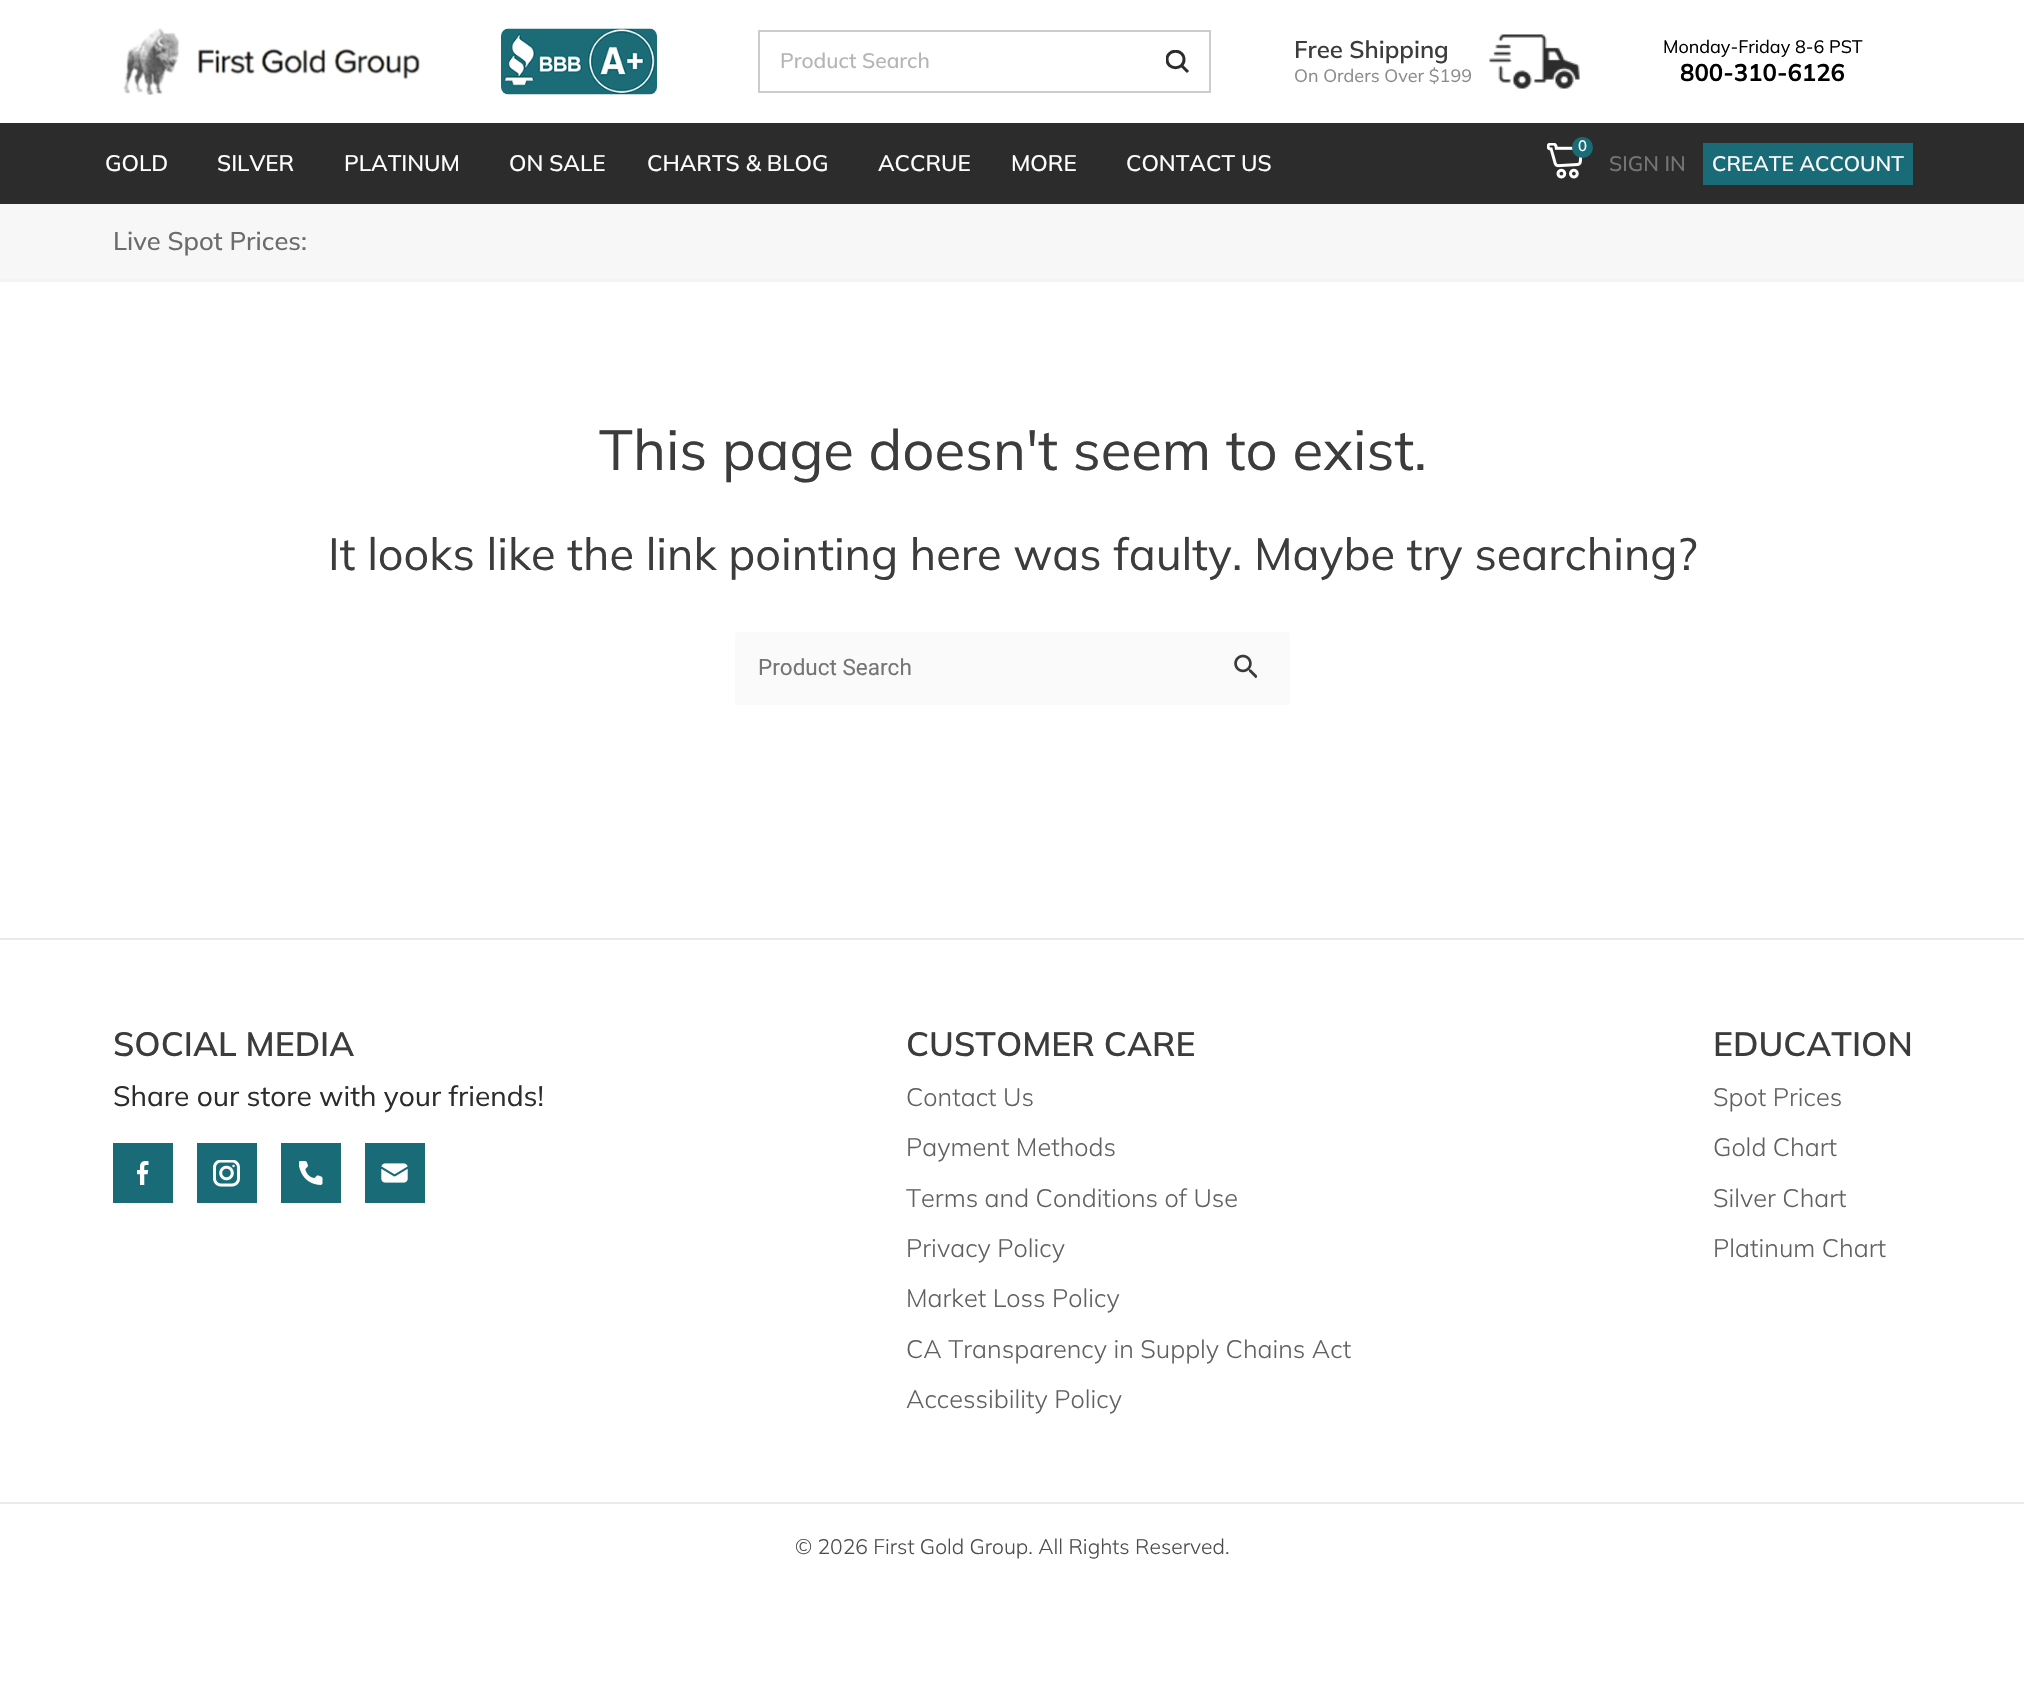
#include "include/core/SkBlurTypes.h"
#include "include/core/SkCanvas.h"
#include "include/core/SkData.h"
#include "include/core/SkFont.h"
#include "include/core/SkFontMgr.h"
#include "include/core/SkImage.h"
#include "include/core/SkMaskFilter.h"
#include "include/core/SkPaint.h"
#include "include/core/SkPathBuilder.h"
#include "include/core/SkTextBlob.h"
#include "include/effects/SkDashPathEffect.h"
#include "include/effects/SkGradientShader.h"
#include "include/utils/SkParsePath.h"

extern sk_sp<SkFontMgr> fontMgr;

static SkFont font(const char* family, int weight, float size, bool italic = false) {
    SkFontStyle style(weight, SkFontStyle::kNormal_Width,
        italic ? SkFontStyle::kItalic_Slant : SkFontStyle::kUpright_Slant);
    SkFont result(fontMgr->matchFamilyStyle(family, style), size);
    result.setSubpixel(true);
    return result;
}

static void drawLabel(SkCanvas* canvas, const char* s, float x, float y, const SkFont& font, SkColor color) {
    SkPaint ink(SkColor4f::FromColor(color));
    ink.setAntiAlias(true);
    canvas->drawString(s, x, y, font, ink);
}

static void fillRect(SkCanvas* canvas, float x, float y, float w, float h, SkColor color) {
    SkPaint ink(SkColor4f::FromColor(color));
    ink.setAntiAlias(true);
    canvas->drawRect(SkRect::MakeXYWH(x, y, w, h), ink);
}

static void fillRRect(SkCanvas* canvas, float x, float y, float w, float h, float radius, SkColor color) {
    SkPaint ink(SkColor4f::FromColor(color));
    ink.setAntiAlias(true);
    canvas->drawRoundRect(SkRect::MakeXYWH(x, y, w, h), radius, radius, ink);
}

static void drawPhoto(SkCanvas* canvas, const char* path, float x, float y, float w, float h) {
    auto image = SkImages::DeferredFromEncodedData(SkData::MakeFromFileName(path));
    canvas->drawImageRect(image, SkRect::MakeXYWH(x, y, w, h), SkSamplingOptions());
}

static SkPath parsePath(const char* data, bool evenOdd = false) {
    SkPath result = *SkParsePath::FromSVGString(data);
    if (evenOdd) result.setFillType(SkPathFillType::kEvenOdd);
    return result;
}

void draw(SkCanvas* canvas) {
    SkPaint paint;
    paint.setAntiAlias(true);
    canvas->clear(0xFFFFFFFF);
    drawPhoto(canvas, "assets/img1.png", 123, 28, 297, 67);
    drawPhoto(canvas, "assets/img2.png", 501, 28, 156, 67);
    paint.setStroke(true);
    paint.setStrokeWidth(2);
    paint.setColor(0xFFCCCCCC);
    canvas->drawRect(SkRect::MakeXYWH(759, 31, 451, 61), paint);
    SkFont font1 = font("Mulish", 500, 21);
    drawLabel(canvas, "Product Search", 780, 68, font1, 0xFFB5B5B5);
    canvas->save();
    canvas->clipRect(SkRect::MakeXYWH(1166, 50, 24, 24));
    paint.setStrokeWidth(3);
    paint.setColor(0xFF2C2C2C);
    canvas->drawPath(parsePath("M1180.5 64.5L1188 72M1184 59.5C1184 70.5 1167 70.5 1167 59.5C1167 48.5 1184 48.5 1184 59.5Z"), paint);
    canvas->restore();
    SkFont font2 = font("Mulish", 600, 24);
    drawLabel(canvas, "Free Shipping", 1294, 58, font2, 0xFF3C3C3C);
    SkFont font3 = font("Mulish", 400, 18);
    drawLabel(canvas, "On Orders Over $199", 1294, 82, font3, 0xFF8B8B8B);
    drawPhoto(canvas, "assets/img3.png", 1489, 34, 91, 55);
    drawLabel(canvas, "Monday-Friday 8-6 PST", 1663, 53, font3, 0xFF000000);
    SkFont font4 = font("Mulish", 700, 24);
    drawLabel(canvas, "800-310-6126", 1680, 81, font4, 0xFF000000);
    fillRect(canvas, 0, 123, 2024, 81, 0xFF2C2C2C);
    SkFont font5 = font("Mulish", 500, 22.5f);
    drawLabel(canvas, "GOLD", 105, 171, font5, 0xFFFFFFFF);
    drawLabel(canvas, "SILVER", 217, 171, font5, 0xFFFFFFFF);
    drawLabel(canvas, "PLATINUM", 344, 171, font5, 0xFFFFFFFF);
    drawLabel(canvas, "ON SALE", 509, 171, font5, 0xFFFFFFFF);
    drawLabel(canvas, "CHARTS & BLOG", 647, 171, font5, 0xFFFFFFFF);
    drawLabel(canvas, "ACCRUE", 878, 171, font5, 0xFFFFFFFF);
    drawLabel(canvas, "MORE", 1011, 171, font5, 0xFFFFFFFF);
    drawLabel(canvas, "CONTACT US", 1126, 171, font5, 0xFFFFFFFF);
    drawPhoto(canvas, "assets/img4.png", 1547, 143, 36, 36);
    paint.setStroke(false);
    paint.setColor(0xFF196C77);
    canvas->drawCircle(1582.5f, 147.5f, 10.5f, paint);
    SkFont font6 = font("Mulish", 500, 15);
    drawLabel(canvas, "0", 1578, 151, font6, 0xFFFFFFFF);
    drawLabel(canvas, "SIGN IN", 1609, 171, font1, 0xFF757575);
    fillRect(canvas, 1703, 143, 210, 42, 0xFF196C77);
    drawLabel(canvas, "CREATE ACCOUNT", 1712, 171, font1, 0xFFFFFFFF);
    fillRect(canvas, 0, 279, 2024, 3, 0xFFF4F4F4);
    fillRect(canvas, 0, 204, 2024, 75, 0xFFF7F7F7);
    SkFont font7 = font("Mulish", 500, 25.5f);
    drawLabel(canvas, "Live Spot Prices:", 113, 250, font7, 0xFF6C6C6C);
    SkFont font8 = font("Mulish", 400, 56.25f);
    drawLabel(canvas, "This page doesn't seem to exist.", 599, 470, font8, 0xFF3C3C3C);
    SkFont font9 = font("Mulish", 400, 45);
    drawLabel(canvas, "It looks like the link pointing here was faulty. Maybe try searching?", 328, 570, font9, 0xFF3C3C3C);
    fillRRect(canvas, 735, 632, 555, 73, 3, 0xFFFAFAFA);
    SkFont font10 = font("Roboto", 400, 22.5f);
    drawLabel(canvas, "Product Search", 758, 675, font10, 0xFF757575);
    drawPhoto(canvas, "assets/img5.png", 1234, 654, 23, 25);
    fillRect(canvas, 0, 938, 2024, 2, 0xFFEAEAEA);
    SkFont font11 = font("Mulish", 600, 33.75f);
    drawLabel(canvas, "SOCIAL MEDIA", 113, 1056, font11, 0xFF3C3C3C);
    SkFont font12 = font("Mulish", 400, 28.1f);
    drawLabel(canvas, "Share our store with your friends!", 113, 1106, font12, 0xFF2C2C2C);
    fillRect(canvas, 113, 1143, 60, 60, 0xFF196C77);
    drawPhoto(canvas, "assets/img6.png", 137, 1161, 12, 24);
    fillRect(canvas, 197, 1143, 60, 60, 0xFF196C77);
    drawPhoto(canvas, "assets/img7.png", 213, 1160, 27, 27);
    fillRect(canvas, 281, 1143, 60, 60, 0xFF196C77);
    drawPhoto(canvas, "assets/img8.png", 299, 1161, 24, 24);
    fillRect(canvas, 365, 1143, 60, 60, 0xFF196C77);
    drawPhoto(canvas, "assets/img9.png", 381, 1163, 27, 20);
    drawLabel(canvas, "CUSTOMER CARE", 906, 1056, font11, 0xFF3C3C3C);
    SkFont font13 = font("Mulish", 300, 25.3f);
    drawLabel(canvas, "Contact Us", 906, 1106, font13, 0xFF616161);
    drawLabel(canvas, "Payment Methods", 906, 1156, font13, 0xFF616161);
    drawLabel(canvas, "Terms and Conditions of Use", 906, 1207, font13, 0xFF616161);
    drawLabel(canvas, "Privacy Policy", 906, 1257, font13, 0xFF616161);
    drawLabel(canvas, "Market Loss Policy", 906, 1307, font13, 0xFF616161);
    drawLabel(canvas, "CA Transparency in Supply Chains Act", 906, 1358, font13, 0xFF616161);
    drawLabel(canvas, "Accessibility Policy", 906, 1408, font13, 0xFF616161);
    drawLabel(canvas, "EDUCATION", 1713, 1056, font11, 0xFF3C3C3C);
    drawLabel(canvas, "Spot Prices", 1713, 1106, font13, 0xFF616161);
    drawLabel(canvas, "Gold Chart", 1713, 1156, font13, 0xFF616161);
    drawLabel(canvas, "Silver Chart", 1713, 1207, font13, 0xFF616161);
    drawLabel(canvas, "Platinum Chart", 1713, 1257, font13, 0xFF616161);
    fillRect(canvas, 0, 1502, 2024, 2, 0xFFEAEAEA);
    SkFont font14 = font("Mulish", 300, 21);
    drawLabel(canvas, "© 2026 First Gold Group. All Rights Reserved.", 795, 1554, font14, 0xFF4C4C4C);
}
